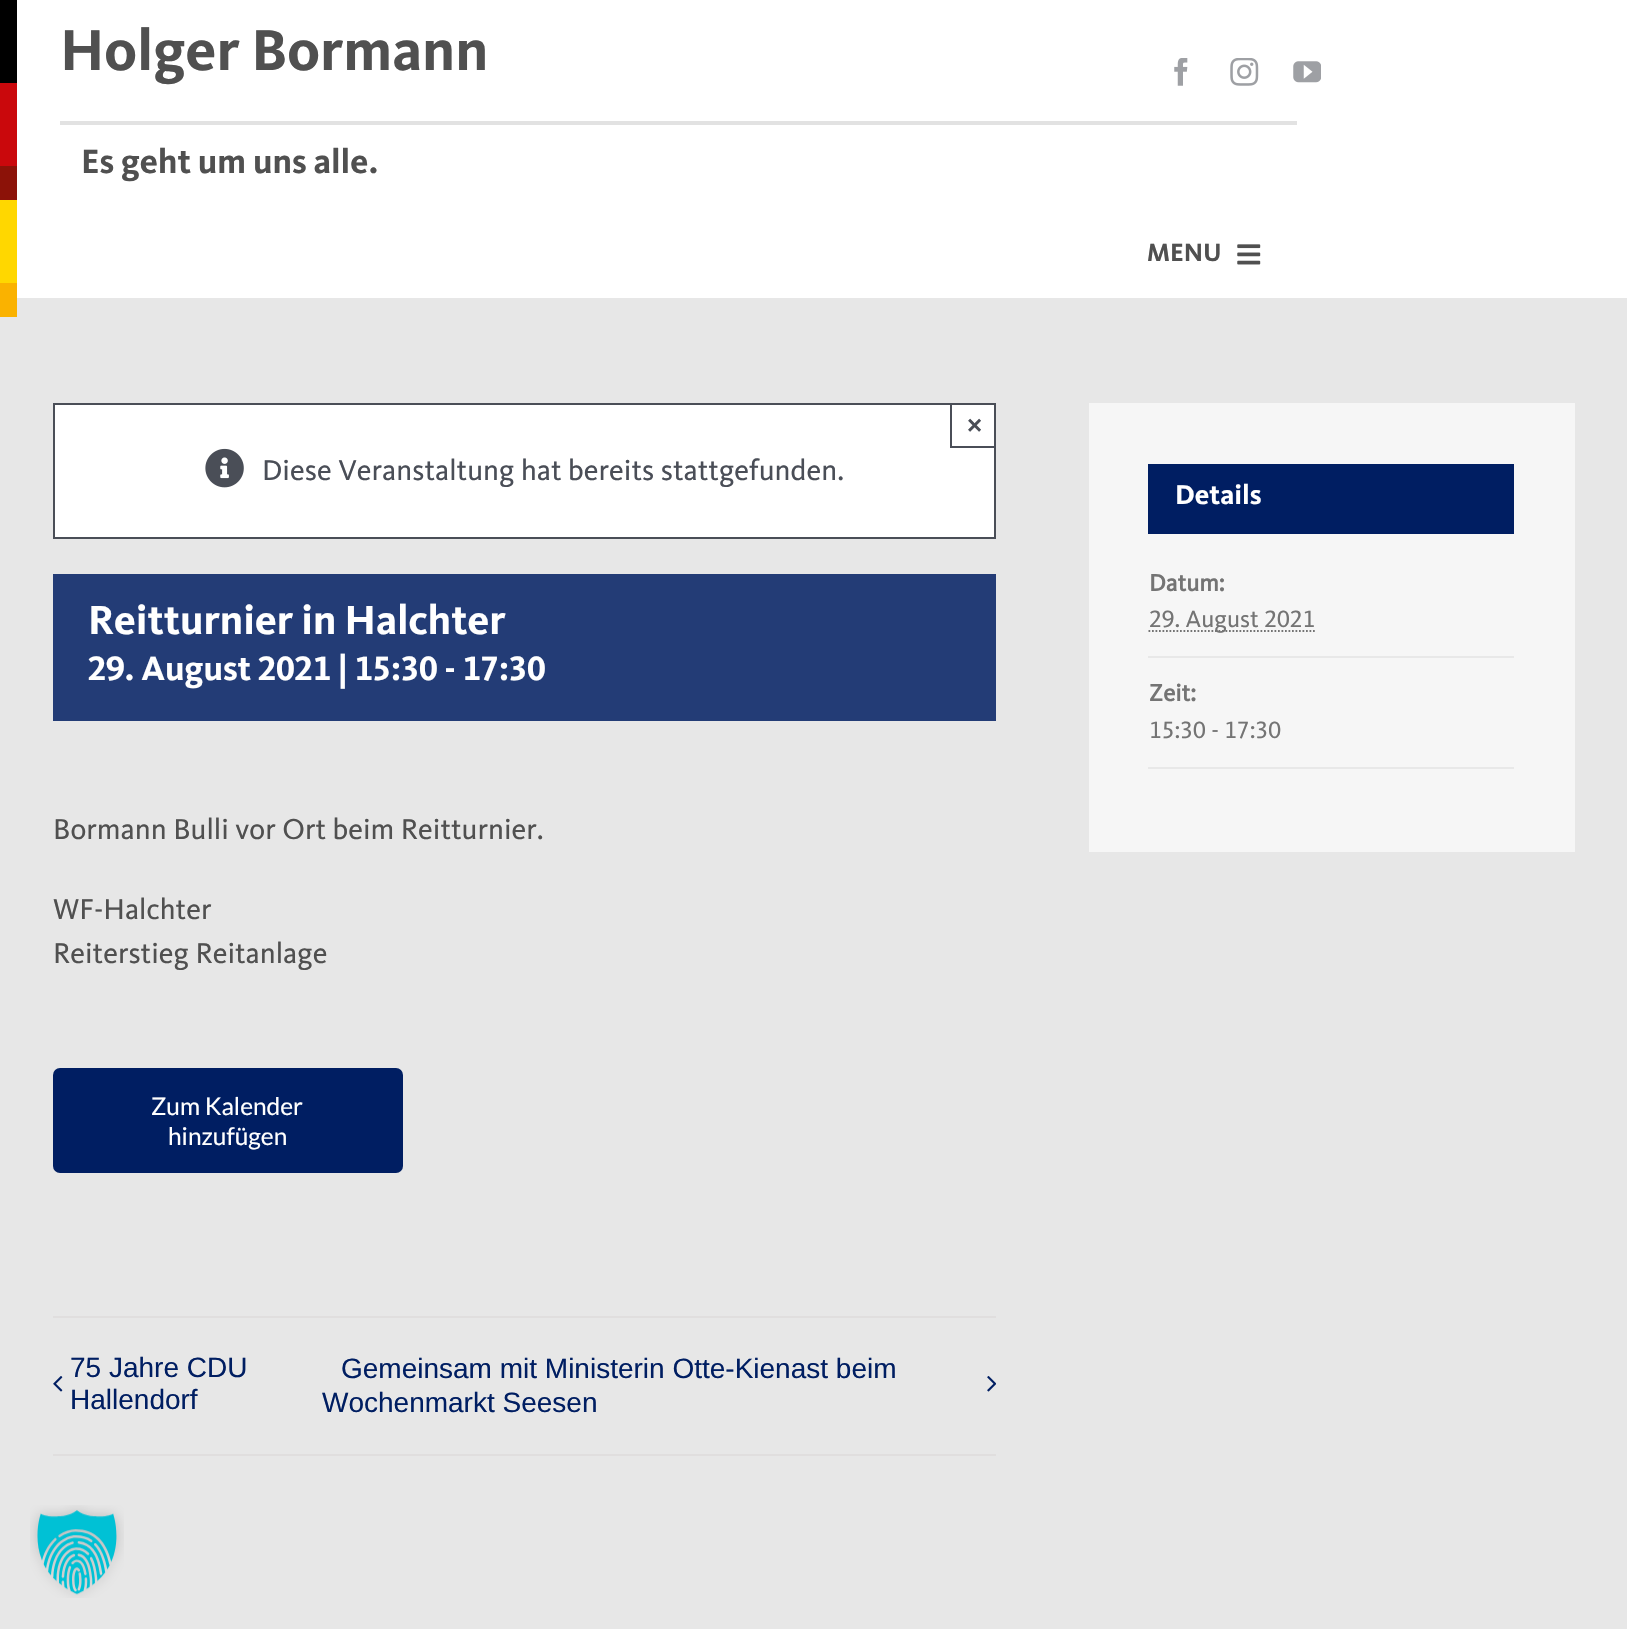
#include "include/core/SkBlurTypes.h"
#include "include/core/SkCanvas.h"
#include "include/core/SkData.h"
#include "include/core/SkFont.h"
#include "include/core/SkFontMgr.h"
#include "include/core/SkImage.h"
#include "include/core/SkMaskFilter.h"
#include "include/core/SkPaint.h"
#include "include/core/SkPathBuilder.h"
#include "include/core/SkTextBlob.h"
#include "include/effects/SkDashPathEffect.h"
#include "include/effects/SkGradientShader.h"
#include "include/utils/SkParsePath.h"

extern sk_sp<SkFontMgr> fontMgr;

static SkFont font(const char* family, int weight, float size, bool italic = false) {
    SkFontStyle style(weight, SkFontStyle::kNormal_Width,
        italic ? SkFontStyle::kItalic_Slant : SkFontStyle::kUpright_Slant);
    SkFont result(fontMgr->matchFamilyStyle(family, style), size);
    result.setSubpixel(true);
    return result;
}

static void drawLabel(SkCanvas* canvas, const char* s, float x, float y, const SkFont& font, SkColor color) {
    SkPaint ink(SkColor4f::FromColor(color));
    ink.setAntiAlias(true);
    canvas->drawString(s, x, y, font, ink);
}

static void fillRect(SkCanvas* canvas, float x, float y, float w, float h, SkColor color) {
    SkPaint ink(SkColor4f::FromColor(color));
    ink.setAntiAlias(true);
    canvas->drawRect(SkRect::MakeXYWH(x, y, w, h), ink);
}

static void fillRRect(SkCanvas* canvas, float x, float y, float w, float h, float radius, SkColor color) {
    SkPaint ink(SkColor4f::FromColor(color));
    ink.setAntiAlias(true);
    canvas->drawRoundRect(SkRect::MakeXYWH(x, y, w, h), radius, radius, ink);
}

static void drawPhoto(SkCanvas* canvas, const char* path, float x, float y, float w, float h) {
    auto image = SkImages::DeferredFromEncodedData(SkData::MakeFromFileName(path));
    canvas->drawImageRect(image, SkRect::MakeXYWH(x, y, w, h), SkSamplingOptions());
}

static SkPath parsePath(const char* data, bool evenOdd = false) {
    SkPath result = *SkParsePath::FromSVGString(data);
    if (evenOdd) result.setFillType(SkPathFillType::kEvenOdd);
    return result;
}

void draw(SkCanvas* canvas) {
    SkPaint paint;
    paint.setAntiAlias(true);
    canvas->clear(0xFFE7E7E7);
    fillRect(canvas, 17, 0, 1610, 298, 0xFFFFFFFF);
    fillRect(canvas, 0, 0, 17, 83, 0xFF000000);
    fillRect(canvas, 0, 83, 17, 83, 0xFFCA080C);
    fillRect(canvas, 0, 200, 17, 83, 0xFFFFD700);
    fillRect(canvas, 0, 166, 17, 34, 0xFF8C1208);
    fillRect(canvas, 0, 283, 17, 34, 0xFFFAB200);
    SkFont font1 = font("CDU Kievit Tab", 700, 59.5f);
    drawLabel(canvas, "Holger Bormann", 60, 70, font1, 0xFF505050);
    drawPhoto(canvas, "assets/img1.png", 1174, 58, 14, 28);
    drawPhoto(canvas, "assets/img2.png", 1230, 58, 29, 28);
    drawPhoto(canvas, "assets/img3.png", 1293, 61, 28, 22);
    fillRect(canvas, 60, 121, 1237, 4, 0xFFE2E2E2);
    SkFont font2 = font("CDU Kievit Tab", 700, 35);
    drawLabel(canvas, "Es geht um uns alle.", 81, 173, font2, 0xFF505050);
    SkFont font3 = font("CDU Kievit Tab", 700, 26);
    drawLabel(canvas, "MENU", 1147, 261, font3, 0xFF505050);
    drawPhoto(canvas, "assets/img4.png", 1237, 244, 24, 21);
    paint.setColor(0xFFFFFFFF);
    canvas->drawRect(SkRect::MakeXYWH(54, 404, 941, 134), paint);
    paint.setStroke(true);
    paint.setStrokeWidth(2);
    paint.setColor(0xFF4A4E57);
    canvas->drawRect(SkRect::MakeXYWH(54, 404, 941, 134), paint);
    fillRect(canvas, 950, 446, 46, 2, 0xFF4A4E57);
    fillRect(canvas, 950, 403, 2, 45, 0xFF4A4E57);
    SkFont font4 = font("Liberation Sans", 700, 26);
    drawLabel(canvas, "×", 967, 434, font4, 0xFF4A4E57);
    drawPhoto(canvas, "assets/img5.png", 205, 448, 39, 40);
    SkFont font5 = font("CDU Kievit Tab", 400, 29.75f);
    drawLabel(canvas, "Diese Veranstaltung hat bereits stattgefunden.", 262, 480, font5, 0xFF4A4E57);
    fillRect(canvas, 53, 574, 943, 147, 0xFF233C76);
    SkFont font6 = font("CDU Kievit Tab", 700, 42);
    drawLabel(canvas, "Reitturnier in Halchter", 88, 634, font6, 0xFFFFFFFF);
    drawLabel(canvas, "29. August 2021 | 15:30 - 17:30", 88, 680, font2, 0xFFFFFFFF);
    drawLabel(canvas, "Bormann Bulli vor Ort beim Reitturnier.", 53, 839, font5, 0xFF505050);
    drawLabel(canvas, "WF-Halchter", 53, 919, font5, 0xFF505050);
    drawLabel(canvas, "Reiterstieg Reitanlage", 53, 963, font5, 0xFF505050);
    fillRRect(canvas, 53, 1068, 350, 105, 7, 0xFF001E62);
    SkFont font7 = font("Lato", 400, 24.5f);
    drawLabel(canvas, "Zum Kalender", 151, 1115, font7, 0xFFFFFFFF);
    drawLabel(canvas, "hinzufügen", 168, 1145, font7, 0xFFFFFFFF);
    fillRect(canvas, 53, 1316, 943, 2, 0xFFE0DEDE);
    fillRect(canvas, 53, 1454, 943, 2, 0xFFE0DEDE);
    SkFont font8 = font("Liberation Sans", 400, 28);
    drawLabel(canvas, "75 Jahre CDU", 70, 1377, font8, 0xFF001E62);
    drawPhoto(canvas, "assets/img6.png", 53, 1376, 10, 16);
    drawLabel(canvas, "Hallendorf", 70, 1409, font8, 0xFF001E62);
    drawLabel(canvas, "Gemeinsam mit Ministerin Otte-Kienast beim", 341, 1378, font8, 0xFF001E62);
    drawPhoto(canvas, "assets/img7.png", 987, 1376, 9, 16);
    drawLabel(canvas, "Wochenmarkt Seesen", 322, 1412, font8, 0xFF001E62);
    fillRect(canvas, 1089, 403, 486, 449, 0xFFF6F6F6);
    fillRect(canvas, 1148, 464, 366, 70, 0xFF001E62);
    SkFont font9 = font("CDU Kievit Tab", 700, 28);
    drawLabel(canvas, "Details", 1175, 504, font9, 0xFFFFFFFF);
    SkFont font10 = font("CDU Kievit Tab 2", 700, 24.5f);
    drawLabel(canvas, "Datum:", 1149, 591, font10, 0xFF747474);
    fillRect(canvas, 1148, 656, 366, 2, 0xFFE8E8E8);
    paint.setStrokeWidth(1.8f);
    paint.setColor(0xFF747474);
    paint.setPathEffect(SkDashPathEffect::Make({{1.75f, 1.75f}}, 0));
    canvas->drawPath(parsePath("M1148.5 631H1315"), paint);
    paint.setPathEffect(nullptr);
    SkFont font11 = font("CDU Kievit Tab", 400, 24.5f);
    drawLabel(canvas, "29. August 2021", 1149, 627, font11, 0xFF747474);
    drawLabel(canvas, "Zeit:", 1149, 701, font10, 0xFF747474);
    fillRect(canvas, 1148, 767, 366, 2, 0xFFE8E8E8);
    drawLabel(canvas, "15:30 - 17:30", 1149, 738, font11, 0xFF747474);
    drawPhoto(canvas, "assets/img8.png", 30, 1505, 94, 93);
}
